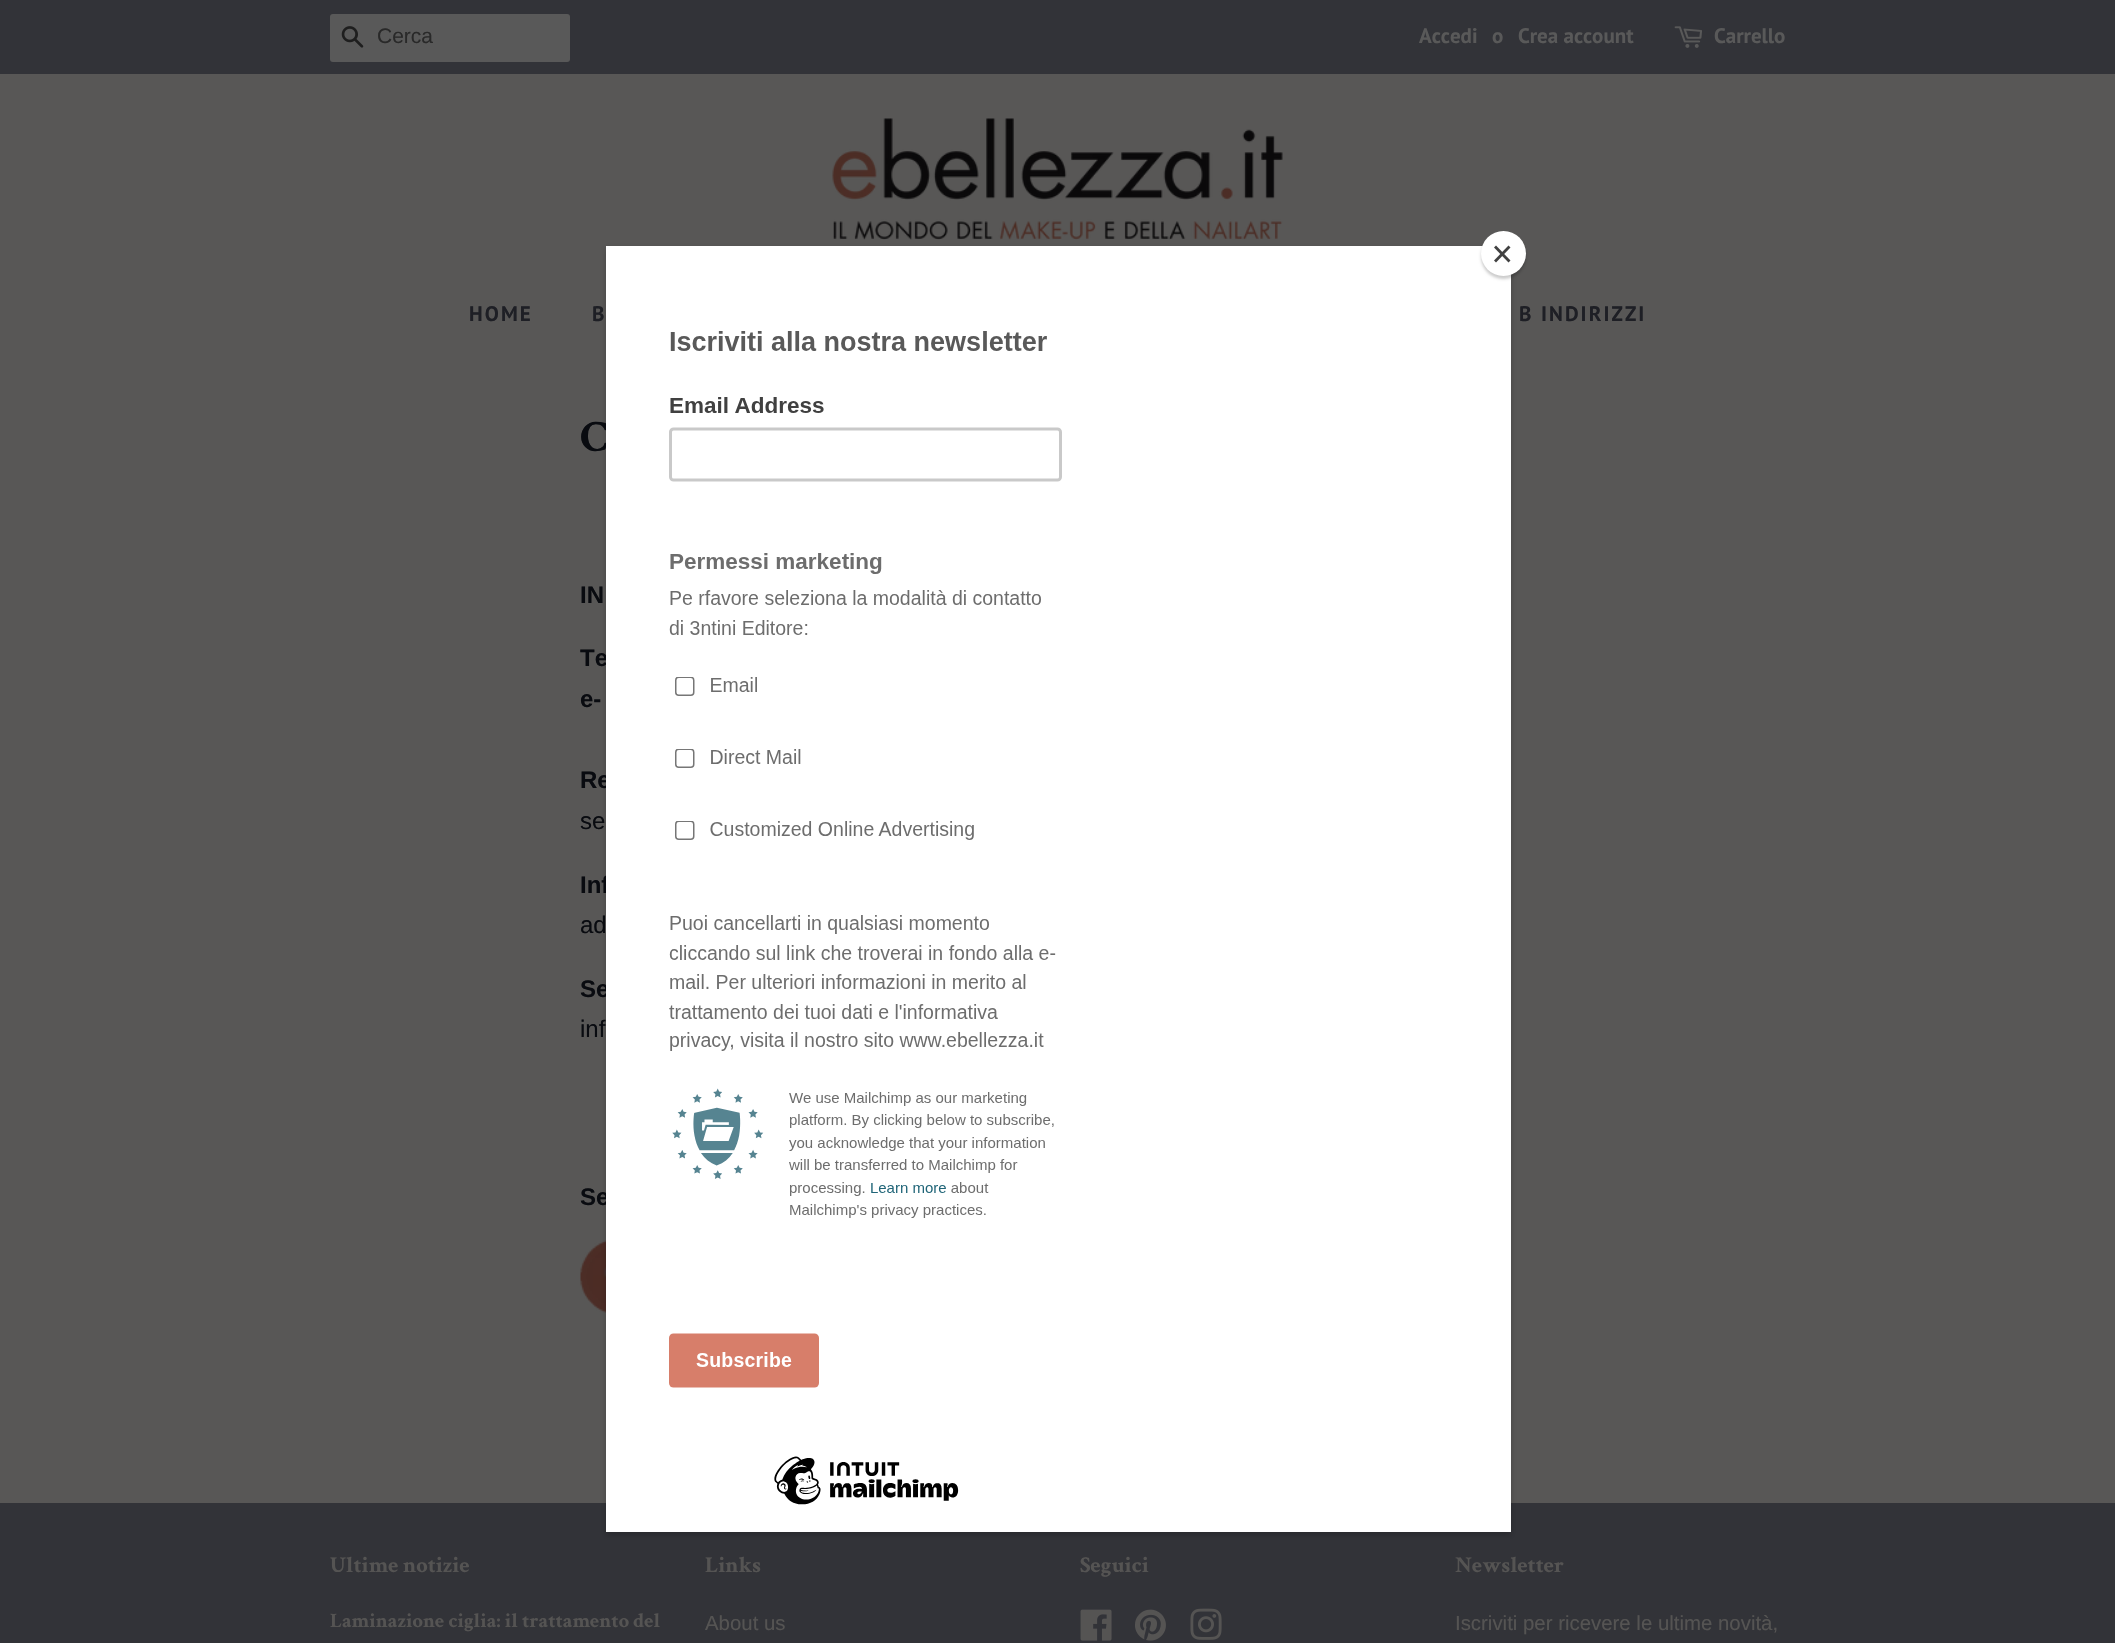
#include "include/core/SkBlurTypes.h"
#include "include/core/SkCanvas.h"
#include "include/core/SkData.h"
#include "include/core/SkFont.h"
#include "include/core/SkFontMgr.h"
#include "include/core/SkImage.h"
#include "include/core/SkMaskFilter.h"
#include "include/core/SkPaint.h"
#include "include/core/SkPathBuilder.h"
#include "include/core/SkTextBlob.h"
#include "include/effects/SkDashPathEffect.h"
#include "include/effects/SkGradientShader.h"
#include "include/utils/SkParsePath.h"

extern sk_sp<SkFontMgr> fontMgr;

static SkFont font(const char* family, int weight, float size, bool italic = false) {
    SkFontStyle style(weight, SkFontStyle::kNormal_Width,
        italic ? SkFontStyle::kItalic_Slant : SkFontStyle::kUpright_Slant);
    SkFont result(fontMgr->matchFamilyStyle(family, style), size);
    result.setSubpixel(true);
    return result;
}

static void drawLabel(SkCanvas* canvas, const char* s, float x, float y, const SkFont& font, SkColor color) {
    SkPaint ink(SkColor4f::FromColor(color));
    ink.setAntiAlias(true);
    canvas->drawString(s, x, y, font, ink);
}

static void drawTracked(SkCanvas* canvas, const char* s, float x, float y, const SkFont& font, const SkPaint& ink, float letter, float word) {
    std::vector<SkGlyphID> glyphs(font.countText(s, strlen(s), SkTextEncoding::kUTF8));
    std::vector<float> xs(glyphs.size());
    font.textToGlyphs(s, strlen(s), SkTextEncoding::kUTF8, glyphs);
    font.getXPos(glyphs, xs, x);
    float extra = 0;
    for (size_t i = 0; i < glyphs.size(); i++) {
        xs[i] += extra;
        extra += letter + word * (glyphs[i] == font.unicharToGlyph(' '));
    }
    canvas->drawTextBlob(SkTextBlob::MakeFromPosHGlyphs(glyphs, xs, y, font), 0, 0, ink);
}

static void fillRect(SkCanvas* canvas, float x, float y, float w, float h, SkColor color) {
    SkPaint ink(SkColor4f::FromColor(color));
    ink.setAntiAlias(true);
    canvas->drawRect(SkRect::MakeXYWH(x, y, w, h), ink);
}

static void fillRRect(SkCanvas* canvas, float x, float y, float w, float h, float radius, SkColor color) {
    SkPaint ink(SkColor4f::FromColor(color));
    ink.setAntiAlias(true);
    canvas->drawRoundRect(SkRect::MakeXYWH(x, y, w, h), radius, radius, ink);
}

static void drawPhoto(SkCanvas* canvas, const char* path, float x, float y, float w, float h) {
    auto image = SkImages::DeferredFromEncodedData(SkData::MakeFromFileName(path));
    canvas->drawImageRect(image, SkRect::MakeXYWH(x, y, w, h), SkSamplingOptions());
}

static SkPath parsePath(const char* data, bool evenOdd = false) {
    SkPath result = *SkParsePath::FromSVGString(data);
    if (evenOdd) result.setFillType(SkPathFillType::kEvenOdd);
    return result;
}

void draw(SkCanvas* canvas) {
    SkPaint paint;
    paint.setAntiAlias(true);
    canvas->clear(0xFF585756);
    fillRect(canvas, 0, 0, 2115, 74, 0xFF323338);
    fillRRect(canvas, 330, 14, 240, 48, 3, 0xFF595959);
    drawPhoto(canvas, "assets/img1.png", 341, 26, 23, 22);
    SkFont font1 = font("Liberation Sans", 400, 21);
    drawLabel(canvas, "Cerca", 377, 43, font1, 0xFF292929);
    SkFont font2 = font("PT Sans", 700, 21);
    drawLabel(canvas, "Accedi", 1419, 43, font2, 0xFF595959);
    drawLabel(canvas, "o", 1492, 43, font2, 0xFF595959);
    drawLabel(canvas, "Crea account", 1518, 43, font2, 0xFF595959);
    drawPhoto(canvas, "assets/img2.png", 1674, 26, 28, 22);
    drawLabel(canvas, "Carrello", 1714, 43, font2, 0xFF595959);
    drawPhoto(canvas, "assets/img3.png", 832, 118, 451, 122);
    paint.setColor(0xFF1E1F25);
    drawTracked(canvas, "HOME", 469, 321, font2, paint, 2.1f, 0);
    drawTracked(canvas, "B", 592, 321, font2, paint, 2.1f, 0);
    drawTracked(canvas, "B INDIRIZZI", 1519, 321, font2, paint, 2.1f, 0);
    SkFont font3 = font("Crimson Text", 700, 45);
    drawLabel(canvas, "C", 580, 451, font3, 0xFF090B10);
    SkFont font4 = font("Liberation Sans", 700, 24);
    drawLabel(canvas, "IN", 580, 603, font4, 0xFF090B10);
    drawLabel(canvas, "Te", 580, 666, font4, 0xFF090B10);
    drawLabel(canvas, "e-", 580, 707, font4, 0xFF090B10);
    drawLabel(canvas, "Re", 580, 788, font4, 0xFF090B10);
    SkFont font5 = font("Liberation Sans", 400, 24);
    drawLabel(canvas, "se", 580, 829, font5, 0xFF090B10);
    drawLabel(canvas, "Inf", 580, 893, font4, 0xFF090B10);
    drawLabel(canvas, "ad", 580, 933, font5, 0xFF090B10);
    drawLabel(canvas, "Se", 580, 997, font4, 0xFF090B10);
    drawLabel(canvas, "inf", 580, 1037, font5, 0xFF090B10);
    drawLabel(canvas, "Se", 580, 1205, font4, 0xFF090B10);
    drawPhoto(canvas, "assets/img4.png", 580, 1240, 26, 73);
    fillRect(canvas, 0, 1503, 2115, 140, 0xFF323338);
    paint.setColor(0x33000000);
    paint.setMaskFilter(SkMaskFilter::MakeBlur(kNormal_SkBlurStyle, 3));
    canvas->drawRect(SkRect::MakeXYWH(606, 249, 905, 1286), paint);
    paint.setMaskFilter(nullptr);
    drawPhoto(canvas, "assets/img5.png", 606, 246, 905, 1286);
    paint.setMaskFilter(SkMaskFilter::MakeBlur(kNormal_SkBlurStyle, 1.5f));
    canvas->drawRoundRect(SkRect::MakeXYWH(1481, 234, 45, 45), 22.5f, 22.5f, paint);
    paint.setMaskFilter(nullptr);
    paint.setColor(0xFFFFFFFF);
    canvas->drawCircle(1503.5f, 253.5f, 22.5f, paint);
    paint.setColor(0xFF414141);
    canvas->drawPath(parsePath("M1508.5 245.5L1510.5 247.5L1496 262.5L1494 260.5Z"), paint);
    canvas->drawPath(parsePath("M1494 247.5L1496 245.5L1510.5 260.5L1508.5 262.5Z"), paint);
    SkFont font6 = font("Crimson Text", 700, 22.5f);
    drawLabel(canvas, "Ultime notizie", 330, 1572, font6, 0xFF555453);
    SkFont font7 = font("Crimson Text", 700, 20.4f);
    drawLabel(canvas, "Laminazione ciglia: il trattamento del", 330, 1627, font7, 0xFF555453);
    drawLabel(canvas, "Links", 705, 1572, font6, 0xFF555453);
    SkFont font8 = font("Liberation Sans", 400, 20.4f);
    drawLabel(canvas, "About us", 705, 1630, font8, 0xFF555453);
    drawLabel(canvas, "Seguici", 1080, 1572, font6, 0xFF555453);
    drawPhoto(canvas, "assets/img6.png", 1080, 1609, 32, 32);
    drawPhoto(canvas, "assets/img7.png", 1135, 1609, 31, 32);
    drawPhoto(canvas, "assets/img8.png", 1190, 1608, 32, 32);
    drawLabel(canvas, "Newsletter", 1455, 1572, font6, 0xFF555453);
    drawLabel(canvas, "Iscriviti per ricevere le ultime novità,", 1455, 1630, font8, 0xFF555453);
}
